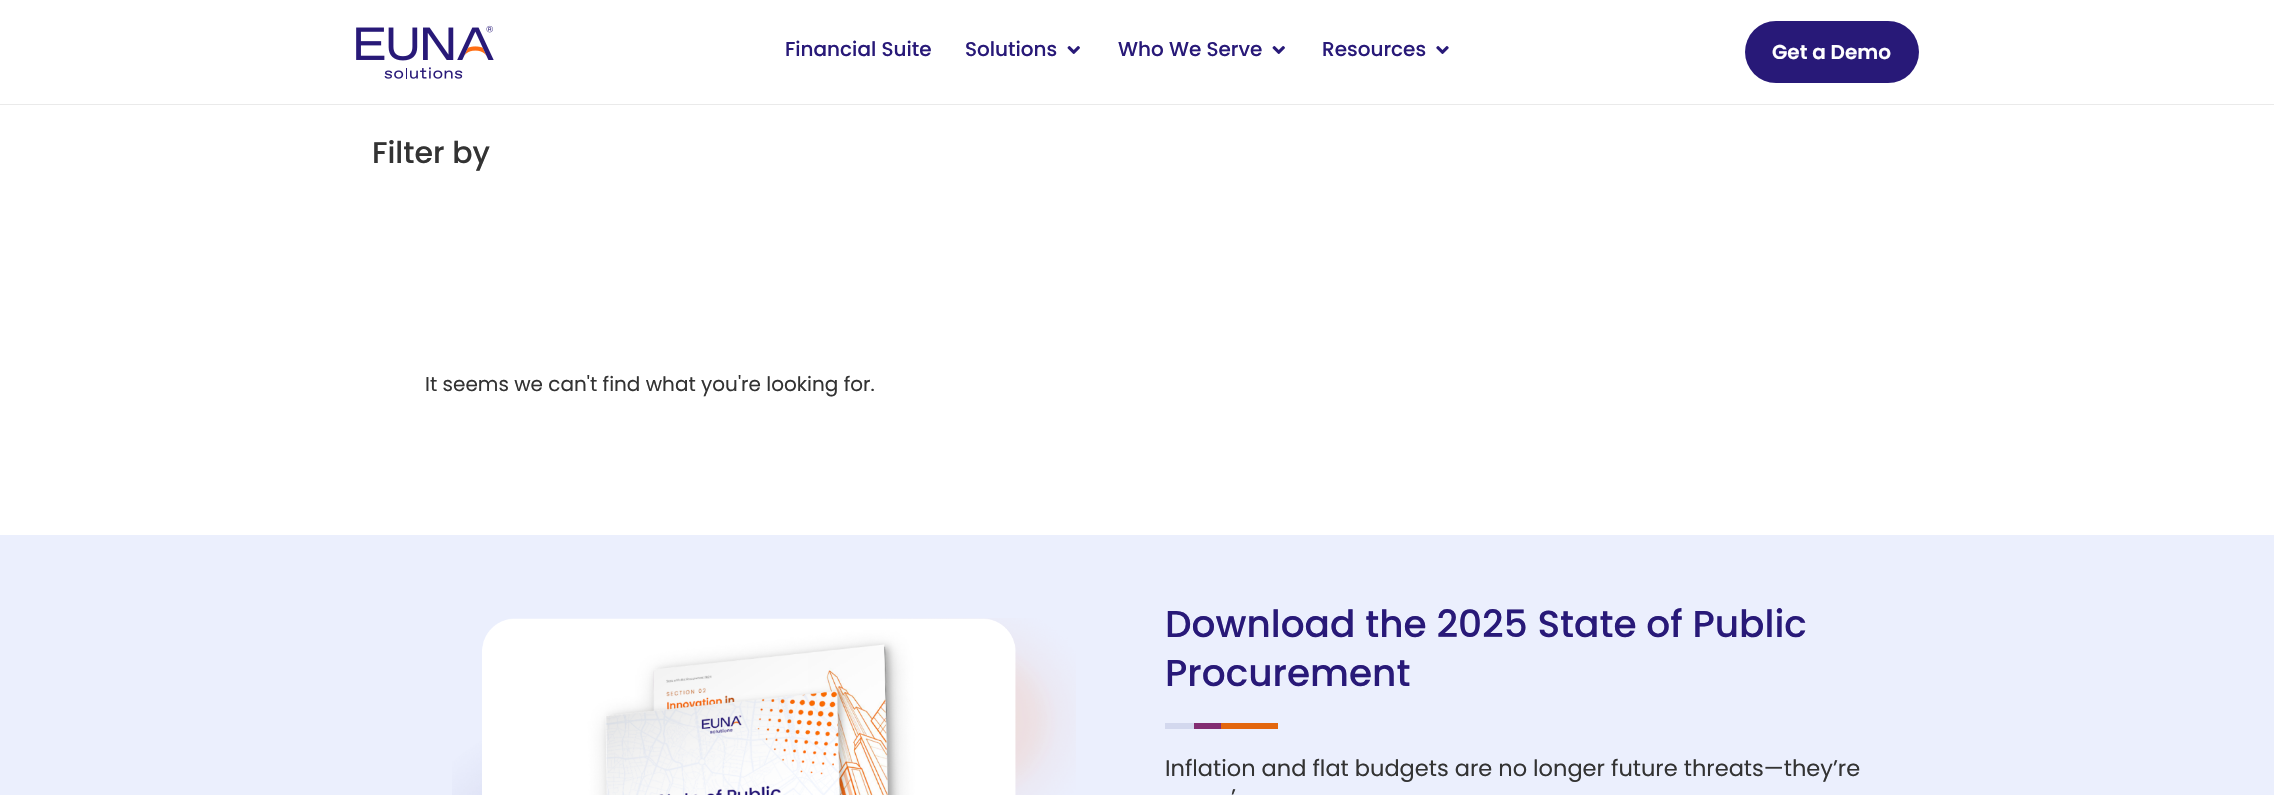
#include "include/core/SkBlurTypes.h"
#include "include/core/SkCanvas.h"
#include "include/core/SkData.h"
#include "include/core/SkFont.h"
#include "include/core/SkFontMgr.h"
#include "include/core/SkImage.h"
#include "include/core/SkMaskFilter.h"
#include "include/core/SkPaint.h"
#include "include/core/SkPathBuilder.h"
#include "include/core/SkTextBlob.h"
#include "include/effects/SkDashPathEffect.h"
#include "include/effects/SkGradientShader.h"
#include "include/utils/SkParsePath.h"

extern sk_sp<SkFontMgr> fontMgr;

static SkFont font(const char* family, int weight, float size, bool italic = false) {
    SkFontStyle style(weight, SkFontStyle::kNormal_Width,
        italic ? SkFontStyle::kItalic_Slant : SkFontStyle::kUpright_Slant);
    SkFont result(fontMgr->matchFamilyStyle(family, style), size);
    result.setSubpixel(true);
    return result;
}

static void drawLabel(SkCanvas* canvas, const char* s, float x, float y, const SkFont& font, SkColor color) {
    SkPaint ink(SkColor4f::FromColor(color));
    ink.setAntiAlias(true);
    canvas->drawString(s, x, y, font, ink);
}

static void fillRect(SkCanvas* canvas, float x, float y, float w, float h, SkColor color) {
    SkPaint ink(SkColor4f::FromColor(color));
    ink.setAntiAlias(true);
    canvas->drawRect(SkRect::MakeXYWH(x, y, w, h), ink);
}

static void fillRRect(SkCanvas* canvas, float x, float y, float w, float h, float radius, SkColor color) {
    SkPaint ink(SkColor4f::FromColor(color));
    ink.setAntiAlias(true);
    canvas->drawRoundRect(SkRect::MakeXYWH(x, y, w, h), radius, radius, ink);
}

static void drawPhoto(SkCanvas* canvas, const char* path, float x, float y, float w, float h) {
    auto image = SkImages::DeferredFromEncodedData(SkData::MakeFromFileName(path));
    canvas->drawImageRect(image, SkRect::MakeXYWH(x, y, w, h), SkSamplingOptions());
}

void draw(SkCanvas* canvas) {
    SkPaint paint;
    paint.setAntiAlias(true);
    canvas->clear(0xFFFFFFFF);
    fillRect(canvas, 0, 104, 2274, 1, 0xFFEAEAEA);
    drawPhoto(canvas, "assets/img1.png", 356, 25, 138, 54);
    SkFont font1 = font("Poppins", 500, 20);
    drawLabel(canvas, "Financial Suite", 785, 56, font1, 0xFF281978);
    drawLabel(canvas, "Solutions", 965, 56, font1, 0xFF281978);
    drawPhoto(canvas, "assets/img2.png", 1067, 46, 13, 8);
    drawLabel(canvas, "Who We Serve", 1118, 56, font1, 0xFF281978);
    drawPhoto(canvas, "assets/img2.png", 1272, 46, 13, 8);
    drawLabel(canvas, "Resources", 1322, 56, font1, 0xFF281978);
    drawPhoto(canvas, "assets/img3.png", 1436, 46, 13, 8);
    fillRRect(canvas, 1745, 21, 174, 62, 31, 0xFF281978);
    SkFont font2 = font("Poppins", 600, 20);
    drawLabel(canvas, "Get a Demo", 1772, 59, font2, 0xFFFFFFFF);
    SkFont font3 = font("Poppins", 500, 30);
    drawLabel(canvas, "Filter by", 372, 163, font3, 0xFF333333);
    SkFont font4 = font("Poppins", 400, 20);
    drawLabel(canvas, "It seems we can't find what you're looking for.", 425, 391, font4, 0xFF333333);
    fillRect(canvas, 0, 535, 2274, 260, 0xFFEBEFFD);
    drawPhoto(canvas, "assets/img4.png", 452, 618, 624, 177);
    SkFont font5 = font("Poppins", 500, 37.5f);
    drawLabel(canvas, "Download the 2025 State of Public", 1165, 637, font5, 0xFF281978);
    drawLabel(canvas, "Procurement", 1165, 686, font5, 0xFF281978);
    fillRect(canvas, 1221, 723, 57, 6, 0xFFE3660D);
    fillRect(canvas, 1194, 723, 27, 6, 0xFF822C72);
    fillRect(canvas, 1165, 723, 29, 6, 0xFFD3D8EE);
    SkFont font6 = font("Poppins", 400, 22.5f);
    drawLabel(canvas, "Inflation and flat budgets are no longer future threats—they’re", 1165, 776, font6, 0xFF333333);
    drawLabel(canvas, "’", 1231, 805, font6, 0xFF333333);
}
